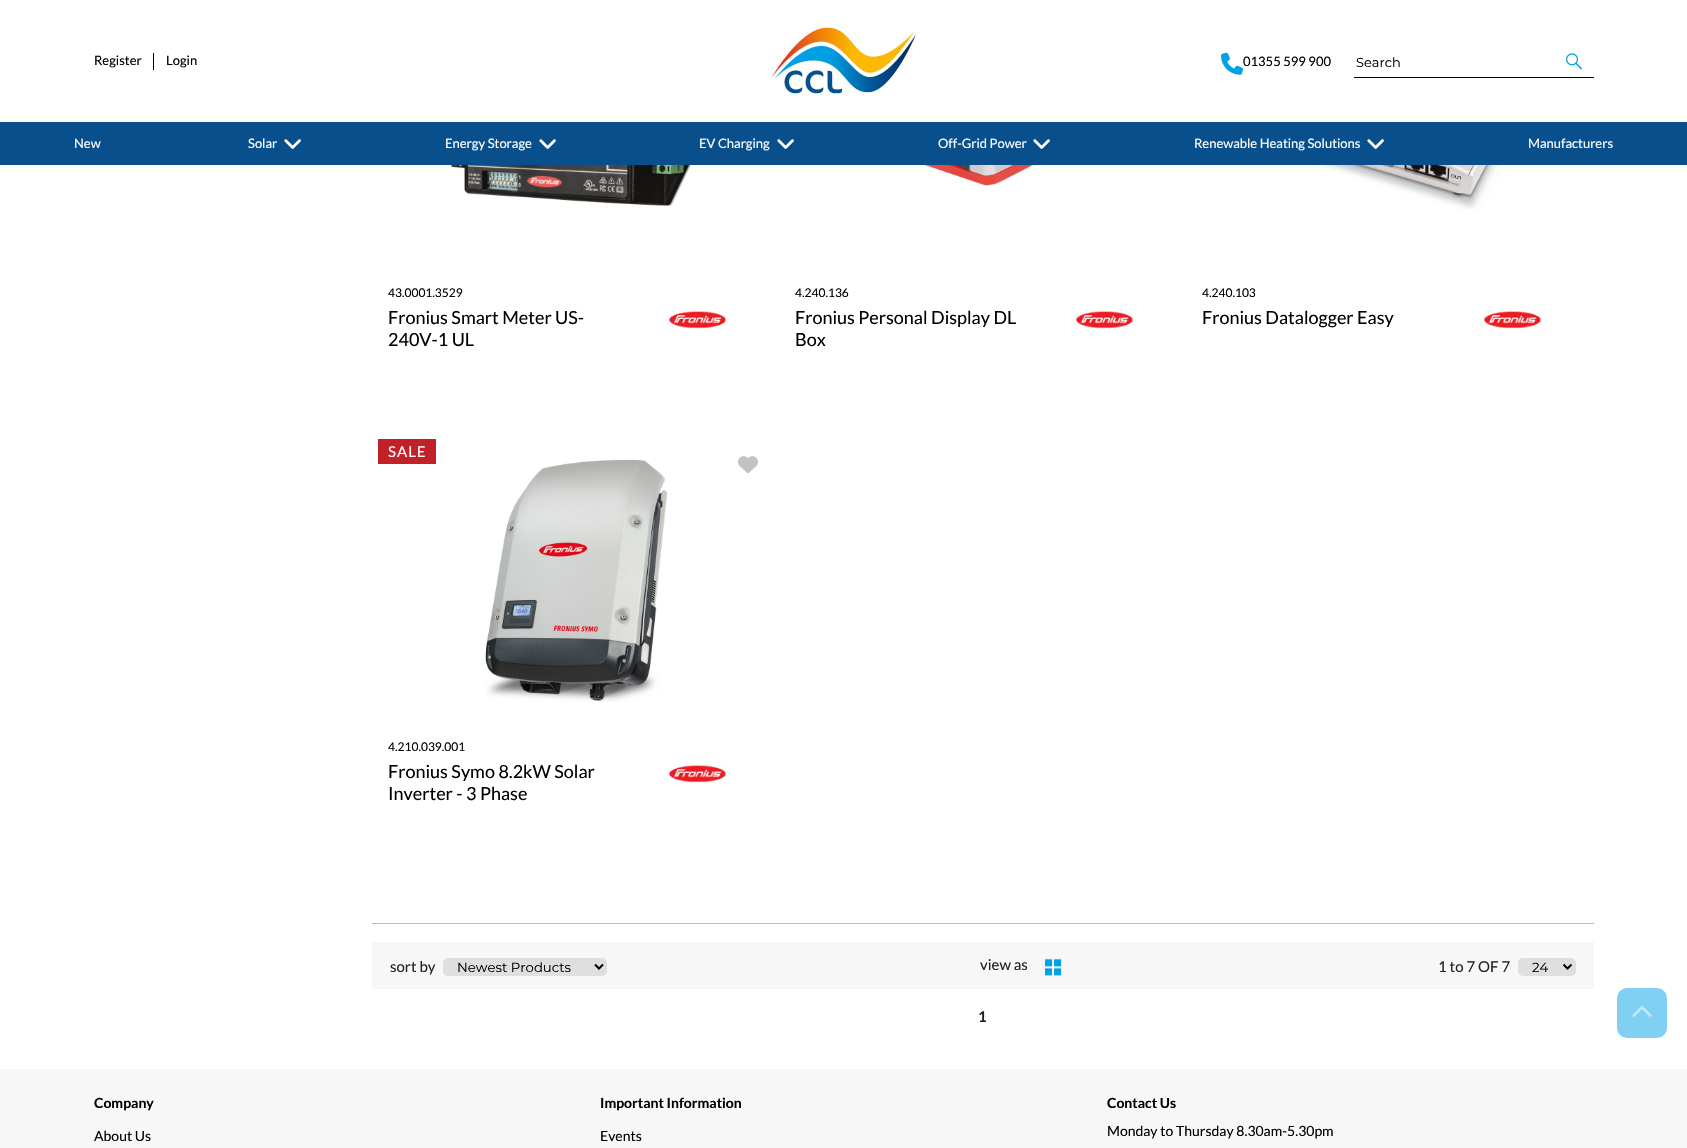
#include "include/core/SkBlurTypes.h"
#include "include/core/SkCanvas.h"
#include "include/core/SkData.h"
#include "include/core/SkFont.h"
#include "include/core/SkFontMgr.h"
#include "include/core/SkImage.h"
#include "include/core/SkMaskFilter.h"
#include "include/core/SkPaint.h"
#include "include/core/SkPathBuilder.h"
#include "include/core/SkTextBlob.h"
#include "include/effects/SkDashPathEffect.h"
#include "include/effects/SkGradientShader.h"
#include "include/utils/SkParsePath.h"

extern sk_sp<SkFontMgr> fontMgr;

static SkFont font(const char* family, int weight, float size, bool italic = false) {
    SkFontStyle style(weight, SkFontStyle::kNormal_Width,
        italic ? SkFontStyle::kItalic_Slant : SkFontStyle::kUpright_Slant);
    SkFont result(fontMgr->matchFamilyStyle(family, style), size);
    result.setSubpixel(true);
    return result;
}

static void drawLabel(SkCanvas* canvas, const char* s, float x, float y, const SkFont& font, SkColor color) {
    SkPaint ink(SkColor4f::FromColor(color));
    ink.setAntiAlias(true);
    canvas->drawString(s, x, y, font, ink);
}

static void drawTracked(SkCanvas* canvas, const char* s, float x, float y, const SkFont& font, const SkPaint& ink, float letter, float word) {
    std::vector<SkGlyphID> glyphs(font.countText(s, strlen(s), SkTextEncoding::kUTF8));
    std::vector<float> xs(glyphs.size());
    font.textToGlyphs(s, strlen(s), SkTextEncoding::kUTF8, glyphs);
    font.getXPos(glyphs, xs, x);
    float extra = 0;
    for (size_t i = 0; i < glyphs.size(); i++) {
        xs[i] += extra;
        extra += letter + word * (glyphs[i] == font.unicharToGlyph(' '));
    }
    canvas->drawTextBlob(SkTextBlob::MakeFromPosHGlyphs(glyphs, xs, y, font), 0, 0, ink);
}

static void fillRect(SkCanvas* canvas, float x, float y, float w, float h, SkColor color) {
    SkPaint ink(SkColor4f::FromColor(color));
    ink.setAntiAlias(true);
    canvas->drawRect(SkRect::MakeXYWH(x, y, w, h), ink);
}

static void fillRRect(SkCanvas* canvas, float x, float y, float w, float h, float radius, SkColor color) {
    SkPaint ink(SkColor4f::FromColor(color));
    ink.setAntiAlias(true);
    canvas->drawRoundRect(SkRect::MakeXYWH(x, y, w, h), radius, radius, ink);
}

static void drawPhoto(SkCanvas* canvas, const char* path, float x, float y, float w, float h) {
    auto image = SkImages::DeferredFromEncodedData(SkData::MakeFromFileName(path));
    canvas->drawImageRect(image, SkRect::MakeXYWH(x, y, w, h), SkSamplingOptions());
}

static SkPath parsePath(const char* data, bool evenOdd = false) {
    SkPath result = *SkParsePath::FromSVGString(data);
    if (evenOdd) result.setFillType(SkPathFillType::kEvenOdd);
    return result;
}

void draw(SkCanvas* canvas) {
    SkPaint paint;
    paint.setAntiAlias(true);
    canvas->clear(0xFFFFFFFF);
    SkFont font1 = font("Lato", 400, 13);
    drawLabel(canvas, "Register", 94, 65, font1, 0xFF000000);
    fillRect(canvas, 153, 53, 1, 17, 0xFF000000);
    drawLabel(canvas, "Login", 166, 65, font1, 0xFF000000);
    drawPhoto(canvas, "assets/img1.png", 769, 24, 150, 72);
    drawPhoto(canvas, "assets/img2.png", 1221, 52, 22, 23);
    drawLabel(canvas, "01355 599 900", 1243, 66, font1, 0xFF000000);
    fillRect(canvas, 1354, 77, 240, 1, 0xFF000000);
    SkFont font2 = font("Montserrat", 400, 13);
    drawLabel(canvas, "Search", 1356, 67, font2, 0xFF000000);
    drawPhoto(canvas, "assets/img3.png", 1566, 53, 16, 17);
    fillRect(canvas, 0, 122, 1687, 43, 0xFF084F8B);
    drawLabel(canvas, "New", 74, 148, font1, 0xFFFFFFFF);
    drawLabel(canvas, "Solar", 248, 148, font1, 0xFFFFFFFF);
    drawPhoto(canvas, "assets/img4.png", 284, 139, 17, 10);
    drawLabel(canvas, "Energy Storage", 445, 148, font1, 0xFFFFFFFF);
    drawPhoto(canvas, "assets/img4.png", 539, 139, 17, 10);
    drawLabel(canvas, "EV Charging", 699, 148, font1, 0xFFFFFFFF);
    drawPhoto(canvas, "assets/img4.png", 777, 139, 17, 10);
    drawLabel(canvas, "Off-Grid Power", 938, 148, font1, 0xFFFFFFFF);
    drawPhoto(canvas, "assets/img4.png", 1033, 139, 17, 10);
    drawLabel(canvas, "Renewable Heating Solutions", 1194, 148, font1, 0xFFFFFFFF);
    drawPhoto(canvas, "assets/img4.png", 1367, 139, 17, 10);
    drawLabel(canvas, "Manufacturers", 1528, 148, font1, 0xFFFFFFFF);
    fillRect(canvas, 372, 923, 1222, 1, 0xFFBDBDBD);
    drawPhoto(canvas, "assets/img5.png", 451, 165, 256, 41);
    SkFont font3 = font("Lato", 400, 12);
    drawLabel(canvas, "43.0001.3529", 388, 297, font3, 0xFF000000);
    SkFont font4 = font("Lato", 400, 18);
    drawLabel(canvas, "Fronius Smart Meter US-", 388, 324, font4, 0xFF000000);
    drawLabel(canvas, "240V-1 UL", 388, 346, font4, 0xFF000000);
    drawPhoto(canvas, "assets/img6.png", 667, 310, 60, 19);
    drawPhoto(canvas, "assets/img7.png", 858, 165, 245, 21);
    drawLabel(canvas, "4.240.136", 795, 297, font3, 0xFF000000);
    drawLabel(canvas, "Fronius Personal Display DL", 795, 324, font4, 0xFF000000);
    drawLabel(canvas, "Box", 795, 346, font4, 0xFF000000);
    drawPhoto(canvas, "assets/img6.png", 1074, 310, 60, 19);
    drawPhoto(canvas, "assets/img8.png", 1256, 165, 258, 45);
    drawLabel(canvas, "4.240.103", 1202, 297, font3, 0xFF000000);
    drawLabel(canvas, "Fronius Datalogger Easy", 1202, 324, font4, 0xFF000000);
    drawPhoto(canvas, "assets/img6.png", 1482, 310, 60, 19);
    fillRect(canvas, 378, 439, 58, 25, 0xFFC22129);
    SkFont font5 = font("Lato", 400, 15);
    paint.setColor(0xFFFFFFFF);
    drawTracked(canvas, "SALE", 388, 457, font5, paint, 1, 0);
    drawPhoto(canvas, "assets/img9.png", 485, 459, 183, 243);
    drawPhoto(canvas, "assets/img10.png", 738, 456, 20, 18);
    drawLabel(canvas, "4.210.039.001", 388, 751, font3, 0xFF000000);
    drawLabel(canvas, "Fronius Symo 8.2kW Solar", 388, 778, font4, 0xFF000000);
    drawLabel(canvas, "Inverter - 3 Phase", 388, 800, font4, 0xFF000000);
    drawPhoto(canvas, "assets/img6.png", 667, 764, 60, 19);
    fillRect(canvas, 372, 942, 1222, 47, 0xFFF7F7F7);
    drawLabel(canvas, "sort by", 390, 972, font5, 0xFF202125);
    fillRRect(canvas, 443, 958, 164, 18, 5, 0xFFDFDFDF);
    paint.setStroke(true);
    paint.setStrokeWidth(2);
    paint.setColor(0xFF000000);
    canvas->drawPath(parsePath("M595 964.5L599 968.5L603 964.5"), paint);
    SkFont font6 = font("Montserrat", 400, 13.25f);
    drawLabel(canvas, "Newest Products", 457, 972, font6, 0xFF000000);
    drawLabel(canvas, "view as", 980, 970, font5, 0xFF202125);
    drawPhoto(canvas, "assets/img11.png", 1045, 959, 17, 17);
    drawLabel(canvas, "1 to 7 OF 7", 1438, 972, font5, 0xFF202125);
    fillRRect(canvas, 1518, 958, 58, 18, 5, 0xFFDFDFDF);
    canvas->drawPath(parsePath("M1563.5 964.5L1567.5 968.5L1571.5 964.5"), paint);
    drawLabel(canvas, "24", 1532, 972, font6, 0xFF000000);
    SkFont font7 = font("Lato", 700, 15);
    drawLabel(canvas, "1", 978, 1022, font7, 0xFF202125);
    fillRRect(canvas, 1617, 988, 50, 50, 10, 0xFF80D0F4);
    drawPhoto(canvas, "assets/img12.png", 1632, 1006, 20, 11);
    fillRect(canvas, 0, 1069, 1687, 79, 0xFFF7F7F7);
    SkFont font8 = font("Lato", 700, 14);
    drawLabel(canvas, "Company", 94, 1108, font8, 0xFF000000);
    SkFont font9 = font("Lato", 400, 14);
    drawLabel(canvas, "About Us", 94, 1141, font9, 0xFF000000);
    drawLabel(canvas, "Important Information", 600, 1108, font8, 0xFF000000);
    drawLabel(canvas, "Events", 600, 1141, font9, 0xFF000000);
    drawLabel(canvas, "Contact Us", 1107, 1108, font8, 0xFF000000);
    drawLabel(canvas, "Monday to Thursday 8.30am-5.30pm", 1107, 1136, font9, 0xFF000000);
}
